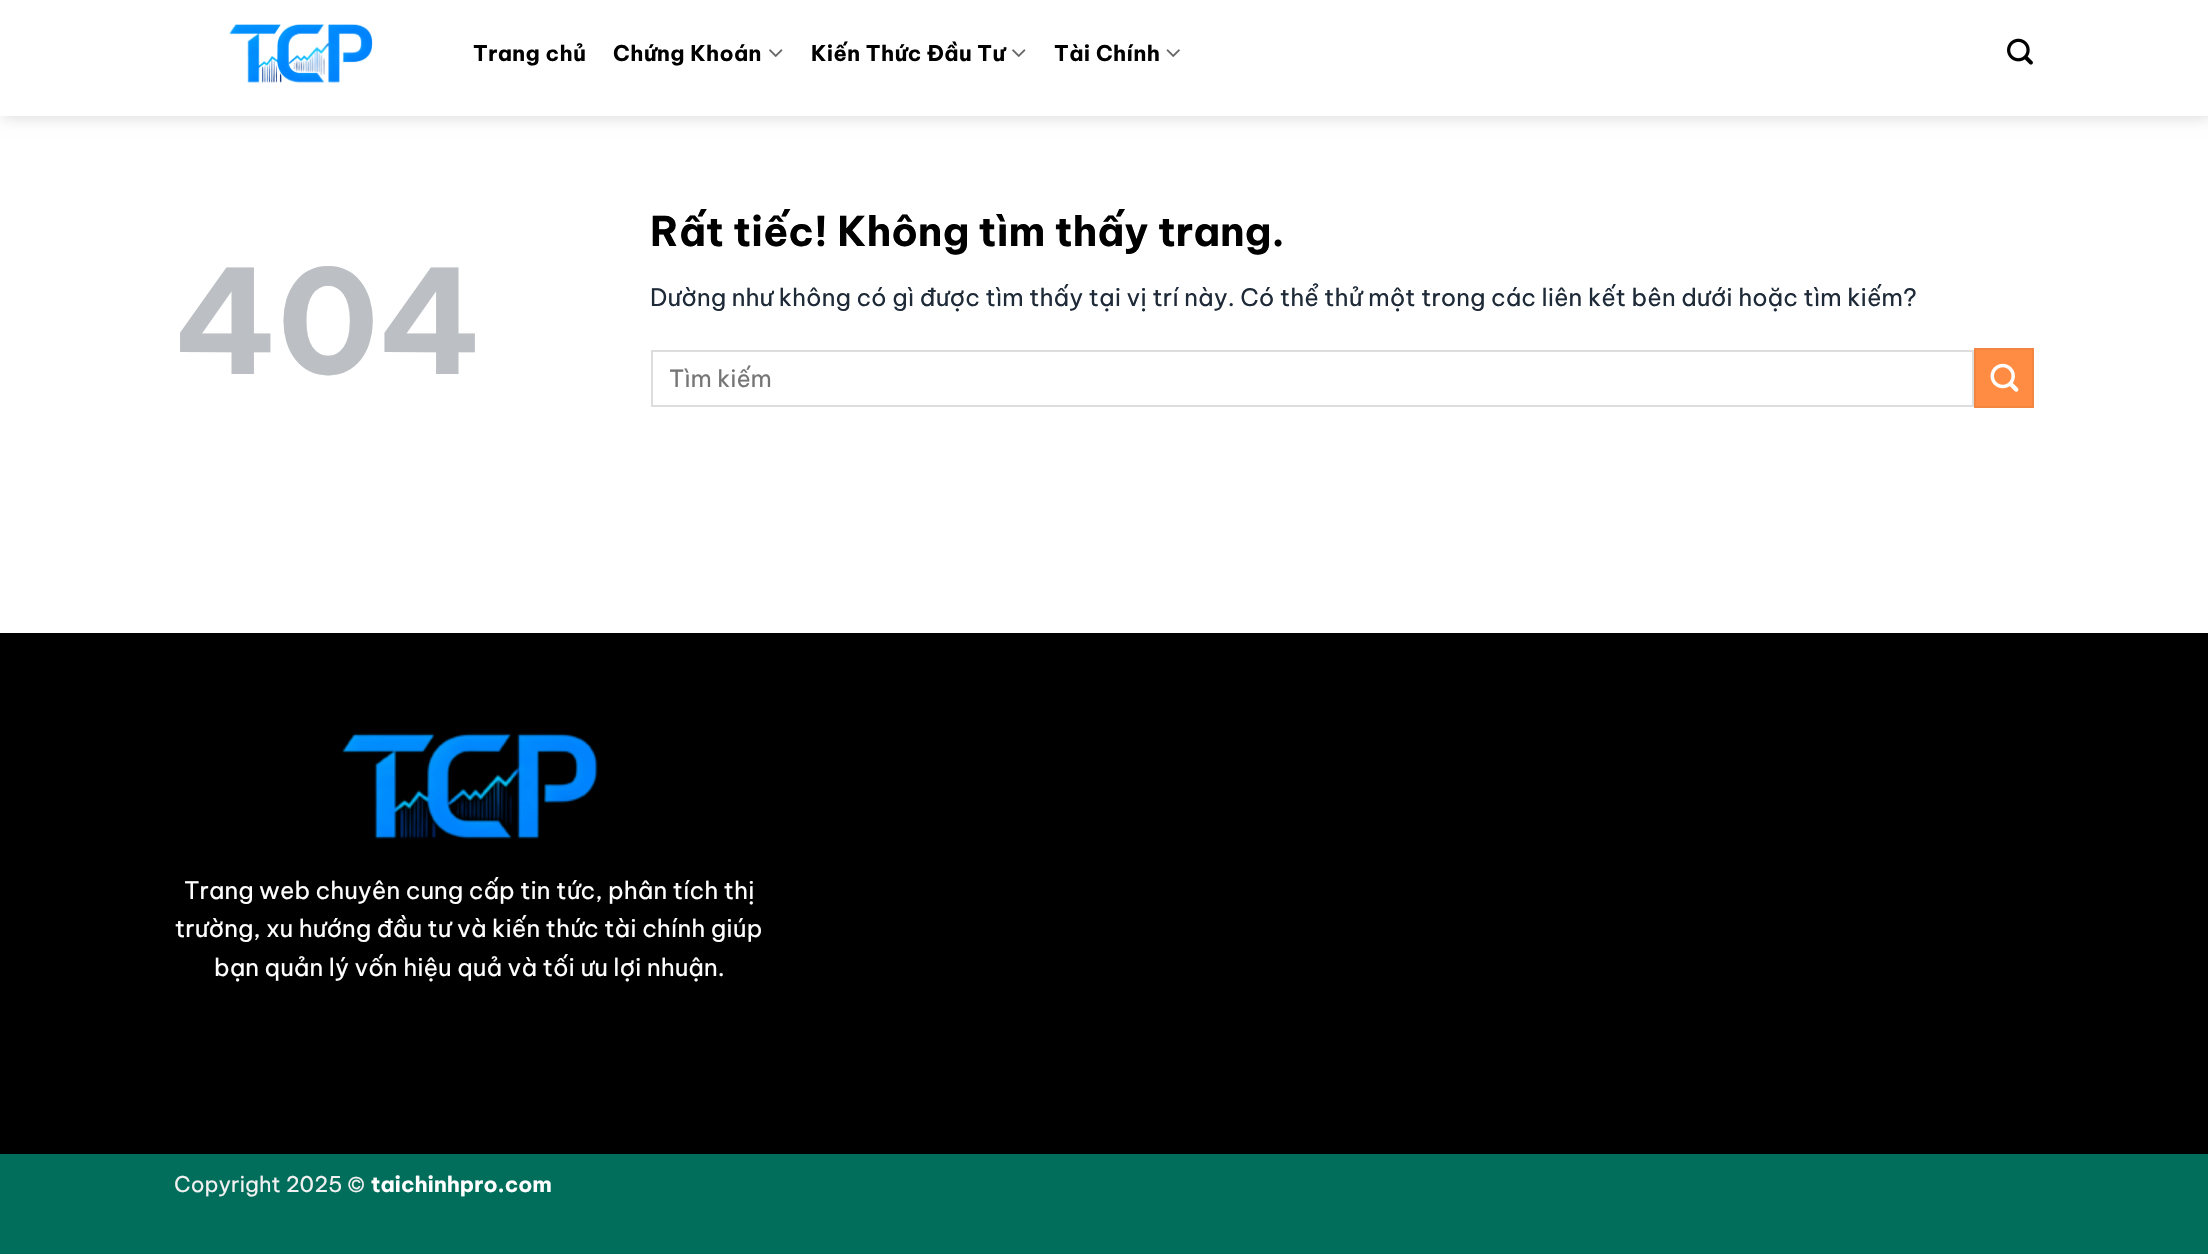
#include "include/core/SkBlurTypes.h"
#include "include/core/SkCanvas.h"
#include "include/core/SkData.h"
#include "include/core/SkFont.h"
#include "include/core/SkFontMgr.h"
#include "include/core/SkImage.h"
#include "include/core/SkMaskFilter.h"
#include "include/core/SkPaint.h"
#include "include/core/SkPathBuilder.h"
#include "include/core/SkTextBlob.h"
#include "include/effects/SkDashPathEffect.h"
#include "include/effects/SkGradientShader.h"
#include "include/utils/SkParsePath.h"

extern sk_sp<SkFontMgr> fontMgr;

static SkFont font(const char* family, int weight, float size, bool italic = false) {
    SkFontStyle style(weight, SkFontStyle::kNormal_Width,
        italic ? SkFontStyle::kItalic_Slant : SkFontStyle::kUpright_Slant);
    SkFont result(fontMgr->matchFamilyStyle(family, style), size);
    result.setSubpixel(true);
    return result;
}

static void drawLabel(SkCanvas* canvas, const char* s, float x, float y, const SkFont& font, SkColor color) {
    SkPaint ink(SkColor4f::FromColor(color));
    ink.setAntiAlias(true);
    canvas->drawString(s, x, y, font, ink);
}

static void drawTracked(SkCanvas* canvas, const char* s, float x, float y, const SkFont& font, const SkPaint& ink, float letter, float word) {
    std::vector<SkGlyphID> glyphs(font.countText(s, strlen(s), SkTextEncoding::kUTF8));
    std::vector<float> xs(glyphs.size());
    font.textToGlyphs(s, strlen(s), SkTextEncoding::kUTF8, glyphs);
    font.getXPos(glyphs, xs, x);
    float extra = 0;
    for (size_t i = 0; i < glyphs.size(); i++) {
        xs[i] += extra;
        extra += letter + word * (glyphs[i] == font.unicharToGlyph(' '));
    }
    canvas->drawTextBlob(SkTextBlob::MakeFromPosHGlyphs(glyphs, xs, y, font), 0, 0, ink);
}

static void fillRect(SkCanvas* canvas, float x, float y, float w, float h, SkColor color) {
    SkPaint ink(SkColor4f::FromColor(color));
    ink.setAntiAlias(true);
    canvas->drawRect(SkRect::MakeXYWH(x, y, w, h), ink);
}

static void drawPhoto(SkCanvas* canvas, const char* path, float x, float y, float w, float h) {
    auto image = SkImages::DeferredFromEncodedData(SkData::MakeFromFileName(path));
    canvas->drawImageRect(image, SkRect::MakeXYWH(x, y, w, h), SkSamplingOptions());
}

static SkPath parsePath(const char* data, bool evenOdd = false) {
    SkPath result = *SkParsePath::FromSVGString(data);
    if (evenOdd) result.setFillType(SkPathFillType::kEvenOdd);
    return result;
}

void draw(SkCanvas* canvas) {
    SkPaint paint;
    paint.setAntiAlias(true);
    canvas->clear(0xFFFFFFFF);
    canvas->save();
    canvas->clipPath(parsePath("M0 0H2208V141H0ZM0-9H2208V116H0Z", true), true);
    paint.setColor(0x26000000);
    paint.setMaskFilter(SkMaskFilter::MakeBlur(kNormal_SkBlurStyle, 7.5f));
    canvas->drawRect(SkRect::MakeXYWH(2, -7, 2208, 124), paint);
    paint.setMaskFilter(nullptr);
    canvas->restore();
    drawPhoto(canvas, "assets/img1.png", 229, 24, 144, 59);
    SkFont font1 = font("Be Vietnam Pro", 700, 21.5f);
    paint.setColor(0xFF000000);
    drawTracked(canvas, "Trang chủ", 473, 61, font1, paint, 0.4f, 0);
    drawTracked(canvas, "Chứng Khoán", 613, 61, font1, paint, 0.4f, 0);
    drawPhoto(canvas, "assets/img2.png", 769, 49, 14, 8);
    drawTracked(canvas, "Kiến Thức Đầu Tư", 811, 61, font1, paint, 0.4f, 0);
    drawPhoto(canvas, "assets/img2.png", 1012, 49, 14, 8);
    drawTracked(canvas, "Tài Chính", 1054, 61, font1, paint, 0.4f, 0);
    drawPhoto(canvas, "assets/img3.png", 1166, 49, 14, 8);
    drawPhoto(canvas, "assets/img4.png", 2007, 38, 26, 27);
    fillRect(canvas, 0, 115, 2208, 1, 0xE6FFFFFF);
    SkFont font2 = font("Be Vietnam Pro", 700, 144);
    drawLabel(canvas, "404", 174, 374, font2, 0xFFBCBFC3);
    SkFont font3 = font("Be Vietnam Pro", 700, 40.75f);
    drawLabel(canvas, "Rất tiếc! Không tìm thấy trang.", 650, 246, font3, 0xFF000000);
    SkFont font4 = font("Be Vietnam Pro", 400, 24);
    drawLabel(canvas, "Dường như không có gì được tìm thấy tại vị trí này. Có thể thử một trong các liên kết bên dưới hoặc tìm kiếm?", 650, 306, font4, 0xFF1E2A38);
    paint.setStroke(true);
    paint.setStrokeWidth(2);
    paint.setColor(0xFFDDDDDD);
    canvas->drawRect(SkRect::MakeXYWH(652, 351, 1321, 55), paint);
    SkFont font5 = font("Be Vietnam Pro", 400, 23.5f);
    drawLabel(canvas, "Tìm kiếm", 669, 387, font5, 0xFF757575);
    paint.setStroke(false);
    paint.setColor(0xFFFF8C42);
    canvas->drawRect(SkRect::MakeXYWH(1975, 349, 58, 58), paint);
    paint.setStroke(true);
    paint.setColor(0xFFF2853F);
    canvas->drawRect(SkRect::MakeXYWH(1975, 349, 58, 58), paint);
    drawPhoto(canvas, "assets/img5.png", 1990, 363, 29, 29);
    fillRect(canvas, 0, 633, 2208, 521, 0xFF000000);
    drawPhoto(canvas, "assets/img6.png", 342, 733, 256, 106);
    drawLabel(canvas, "Trang web chuyên cung cấp tin tức, phân tích thị", 184, 899, font4, 0xFFFFFFFF);
    drawLabel(canvas, "trường, xu hướng đầu tư và kiến thức tài chính giúp", 175, 937, font4, 0xFFFFFFFF);
    drawLabel(canvas, "bạn quản lý vốn hiệu quả và tối ưu lợi nhuận.", 214, 976, font4, 0xFFFFFFFF);
    fillRect(canvas, 0, 1154, 2208, 100, 0xFF016D5B);
    SkFont font6 = font("Be Vietnam Pro", 400, 21.5f);
    drawLabel(canvas, "Copyright 2025 ©", 174, 1192, font6, 0xFFF1F1F1);
    drawLabel(canvas, "taichinhpro.com", 371, 1192, font1, 0xFFFFFFFF);
}
